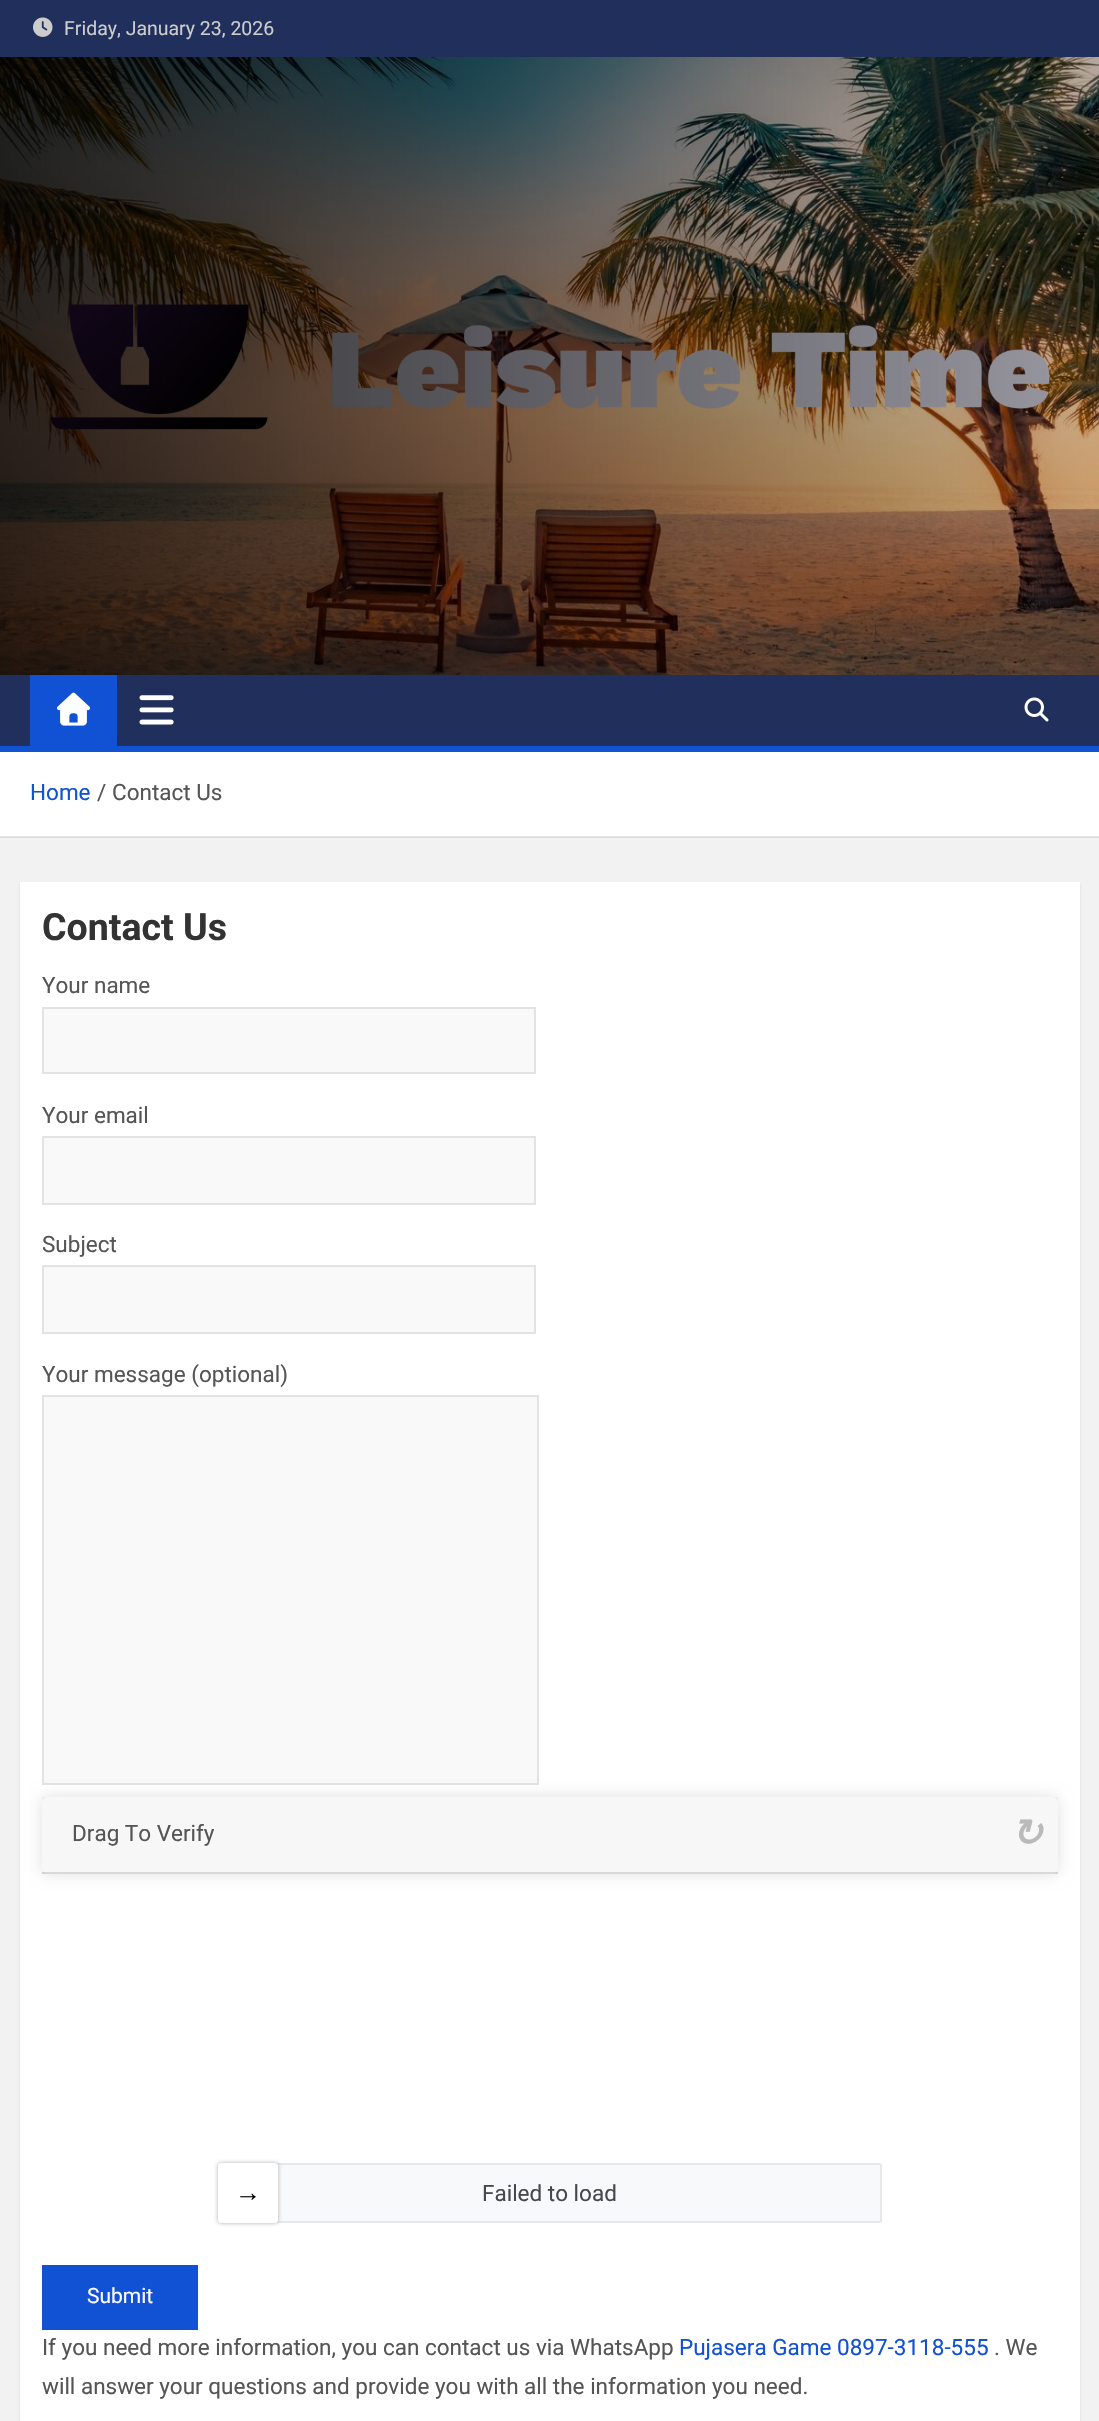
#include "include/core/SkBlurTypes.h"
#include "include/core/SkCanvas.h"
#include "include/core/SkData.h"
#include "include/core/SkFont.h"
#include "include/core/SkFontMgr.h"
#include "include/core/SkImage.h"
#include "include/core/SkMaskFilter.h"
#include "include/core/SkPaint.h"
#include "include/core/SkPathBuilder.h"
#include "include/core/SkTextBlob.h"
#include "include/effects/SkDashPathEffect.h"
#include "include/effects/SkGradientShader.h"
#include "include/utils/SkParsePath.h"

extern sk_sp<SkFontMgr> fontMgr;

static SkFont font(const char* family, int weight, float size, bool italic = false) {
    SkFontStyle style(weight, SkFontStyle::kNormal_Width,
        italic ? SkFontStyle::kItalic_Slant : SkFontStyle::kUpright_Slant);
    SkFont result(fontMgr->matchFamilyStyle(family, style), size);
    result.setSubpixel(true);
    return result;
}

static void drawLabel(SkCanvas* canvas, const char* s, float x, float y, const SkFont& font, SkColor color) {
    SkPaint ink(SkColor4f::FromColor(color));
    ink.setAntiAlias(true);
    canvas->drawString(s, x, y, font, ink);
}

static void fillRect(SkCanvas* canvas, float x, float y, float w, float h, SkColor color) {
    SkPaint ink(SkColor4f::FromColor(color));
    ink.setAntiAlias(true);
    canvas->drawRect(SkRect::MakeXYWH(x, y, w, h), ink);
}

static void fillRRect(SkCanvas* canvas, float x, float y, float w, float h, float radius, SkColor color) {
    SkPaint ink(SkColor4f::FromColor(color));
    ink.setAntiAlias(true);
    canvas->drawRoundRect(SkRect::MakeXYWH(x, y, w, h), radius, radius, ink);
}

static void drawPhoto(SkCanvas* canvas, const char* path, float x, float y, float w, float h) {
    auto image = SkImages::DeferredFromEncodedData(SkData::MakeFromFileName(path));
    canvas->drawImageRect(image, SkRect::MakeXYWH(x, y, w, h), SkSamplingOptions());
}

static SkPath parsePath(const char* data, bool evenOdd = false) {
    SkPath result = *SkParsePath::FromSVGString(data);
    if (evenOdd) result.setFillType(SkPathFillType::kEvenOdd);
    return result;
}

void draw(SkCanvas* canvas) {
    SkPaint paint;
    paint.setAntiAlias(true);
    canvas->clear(0xFFF2F2F2);
    fillRect(canvas, 0, 837, 1099, 1, 0xFFDADADA);
    fillRect(canvas, 0, 0, 1099, 57, 0xFF202F5B);
    drawPhoto(canvas, "assets/img1.png", 33, 17, 20, 20);
    SkFont font1 = font("Roboto", 400, 19.5f);
    drawLabel(canvas, "Friday, January 23, 2026", 64, 35, font1, 0xFFCCCCCC);
    drawPhoto(canvas, "assets/img2.png", 0, 57, 1099, 618);
    drawPhoto(canvas, "assets/img3.png", 50, 304, 1000, 126);
    {
        const SkColor colors[] = {0xCC000000, 0x33000000};
        const float stops[] = {0, 1};
        const SkPoint ends[] = {{0, 366}, {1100, 366}};
        paint.setShader(SkGradientShader::MakeLinear(ends, colors, stops, 2, SkTileMode::kClamp));
        paint.setAlpha(255);
    }
    canvas->drawRect(SkRect::MakeXYWH(0, 57, 1099, 618), paint);
    fillRect(canvas, 0, 675, 1099, 71, 0xFF202F5B);
    fillRect(canvas, 30, 675, 87, 71, 0xFF1151D3);
    drawPhoto(canvas, "assets/img4.png", 57, 692, 33, 34);
    drawPhoto(canvas, "assets/img5.png", 139, 695, 35, 30);
    drawPhoto(canvas, "assets/img6.png", 1024, 697, 25, 25);
    fillRect(canvas, 0, 746, 1099, 6, 0xFF1151D3);
    fillRect(canvas, 0, 752, 1099, 84, 0xFFFFFFFF);
    fillRect(canvas, 0, 836, 1099, 1, 0xFFE6E6E6);
    SkFont font2 = font("Roboto", 400, 22.5f);
    drawLabel(canvas, "Home", 30, 800, font2, 0xFF1151D3);
    drawLabel(canvas, "/", 97, 800, font2, 0xFF555555);
    drawLabel(canvas, "Contact Us", 112, 800, font2, 0xFF555555);
    paint.setShader(nullptr);
    paint.setColor(0x1A000000);
    paint.setMaskFilter(SkMaskFilter::MakeBlur(kNormal_SkBlurStyle, 1));
    canvas->drawRect(SkRect::MakeXYWH(20, 884, 1060, 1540), paint);
    paint.setMaskFilter(nullptr);
    fillRect(canvas, 20, 882, 1060, 1539, 0xFFFFFFFF);
    SkFont font3 = font("Roboto", 700, 37.5f);
    drawLabel(canvas, "Contact Us", 42, 940, font3, 0xFF333333);
    drawLabel(canvas, "Your name", 42, 993, font2, 0xFF555555);
    paint.setColor(0xFFF9F9F9);
    canvas->drawRect(SkRect::MakeXYWH(43, 1008, 492, 65), paint);
    paint.setStroke(true);
    paint.setStrokeWidth(2);
    paint.setColor(0xFFE3E3E3);
    canvas->drawRect(SkRect::MakeXYWH(43, 1008, 492, 65), paint);
    drawLabel(canvas, "Your email", 42, 1123, font2, 0xFF555555);
    paint.setStroke(false);
    paint.setColor(0xFFF9F9F9);
    canvas->drawRect(SkRect::MakeXYWH(43, 1137, 492, 67), paint);
    paint.setStroke(true);
    paint.setColor(0xFFE3E3E3);
    canvas->drawRect(SkRect::MakeXYWH(43, 1137, 492, 67), paint);
    drawLabel(canvas, "Subject", 42, 1252, font2, 0xFF555555);
    paint.setStroke(false);
    paint.setColor(0xFFF9F9F9);
    canvas->drawRect(SkRect::MakeXYWH(43, 1266, 492, 67), paint);
    paint.setStroke(true);
    paint.setColor(0xFFE3E3E3);
    canvas->drawRect(SkRect::MakeXYWH(43, 1266, 492, 67), paint);
    drawLabel(canvas, "Your message (optional)", 42, 1382, font2, 0xFF555555);
    paint.setStroke(false);
    paint.setColor(0xFFF9F9F9);
    canvas->drawRect(SkRect::MakeXYWH(43, 1396, 495, 388), paint);
    paint.setStroke(true);
    paint.setColor(0xFFE3E3E3);
    canvas->drawRect(SkRect::MakeXYWH(43, 1396, 495, 388), paint);
    canvas->save();
    canvas->clipPath(parsePath("M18 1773H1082V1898H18ZM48 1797H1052C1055.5 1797 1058 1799.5 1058 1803V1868C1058 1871.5 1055.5 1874 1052 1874H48C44.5 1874 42 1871.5 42 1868V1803C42 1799.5 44.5 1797 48 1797Z", true), true);
    paint.setStroke(false);
    paint.setColor(0x1F000000);
    paint.setMaskFilter(SkMaskFilter::MakeBlur(kNormal_SkBlurStyle, 7.5f));
    canvas->drawRoundRect(SkRect::MakeXYWH(42, 1797, 1016, 77), 6, 6, paint);
    paint.setMaskFilter(nullptr);
    canvas->restore();
    fillRect(canvas, 42, 1797, 1016, 77, 0x08000000);
    fillRect(canvas, 42, 1872, 1016, 2, 0x1F000000);
    drawLabel(canvas, "Drag To Verify", 72, 1841, font2, 0xFF555555);
    SkFont font4 = font("DejaVu Sans", 700, 37.5f, true);
    drawLabel(canvas, "↻", 1011, 1846, font4, 0xFFBABABA);
    paint.setColor(0xFFF7F9FA);
    canvas->drawRoundRect(SkRect::MakeXYWH(219, 2164, 662, 58), 2, 2, paint);
    paint.setStroke(true);
    paint.setColor(0xFFE6E8EB);
    canvas->drawRoundRect(SkRect::MakeXYWH(219, 2164, 662, 58), 2, 2, paint);
    paint.setStroke(false);
    paint.setColor(0x4D000000);
    paint.setMaskFilter(SkMaskFilter::MakeBlur(kNormal_SkBlurStyle, 2));
    canvas->drawRoundRect(SkRect::MakeXYWH(218, 2163, 60, 60), 3, 3, paint);
    paint.setMaskFilter(nullptr);
    fillRRect(canvas, 218, 2163, 60, 60, 3, 0xFFFFFFFF);
    SkFont font5 = font("Liberation Sans", 700, 26, true);
    drawLabel(canvas, "→", 235, 2201, font5, 0xFF000000);
    drawLabel(canvas, "Failed to load", 482, 2201, font2, 0xFF45494C);
    fillRect(canvas, 42, 2265, 156, 65, 0xFF1151D3);
    SkFont font6 = font("Roboto", 400, 21);
    drawLabel(canvas, "Submit", 87, 2303, font6, 0xFFFFFFFF);
    drawLabel(canvas, "If you need more information, you can contact us via WhatsApp", 42, 2355, font2, 0xFF555555);
    drawLabel(canvas, "Pujasera Game 0897-3118-555", 679, 2355, font2, 0xFF1151D3);
    drawLabel(canvas, ". We", 994, 2355, font2, 0xFF555555);
    drawLabel(canvas, "will answer your questions and provide you with all the information you need.", 42, 2394, font2, 0xFF555555);
}
